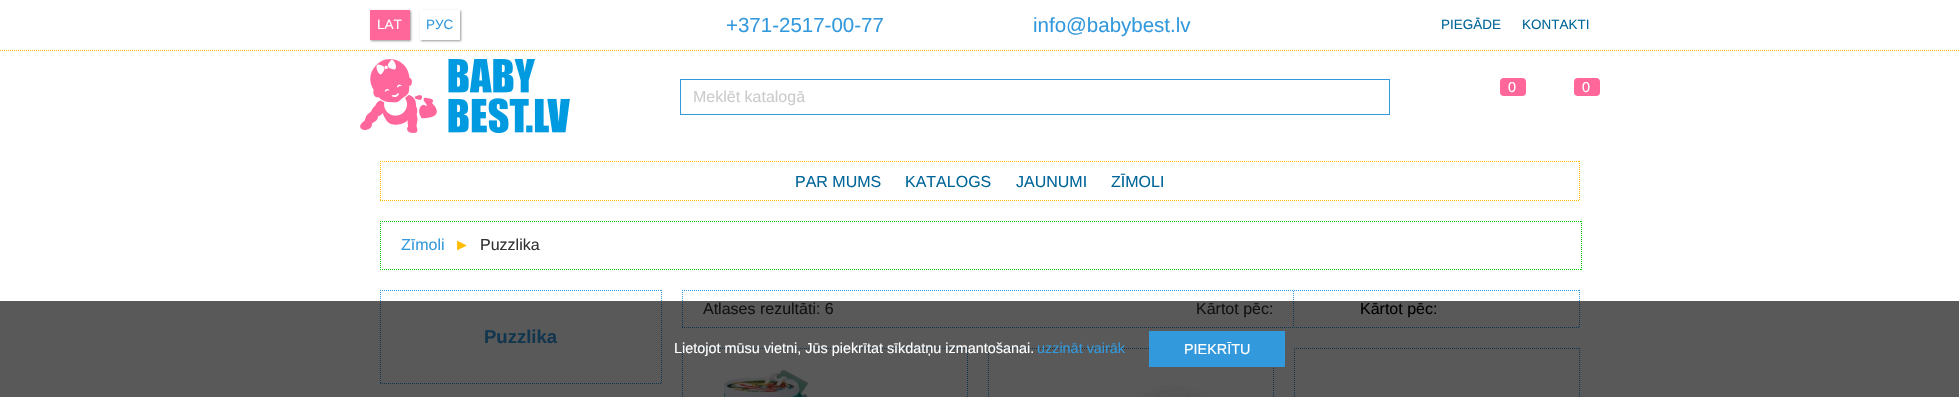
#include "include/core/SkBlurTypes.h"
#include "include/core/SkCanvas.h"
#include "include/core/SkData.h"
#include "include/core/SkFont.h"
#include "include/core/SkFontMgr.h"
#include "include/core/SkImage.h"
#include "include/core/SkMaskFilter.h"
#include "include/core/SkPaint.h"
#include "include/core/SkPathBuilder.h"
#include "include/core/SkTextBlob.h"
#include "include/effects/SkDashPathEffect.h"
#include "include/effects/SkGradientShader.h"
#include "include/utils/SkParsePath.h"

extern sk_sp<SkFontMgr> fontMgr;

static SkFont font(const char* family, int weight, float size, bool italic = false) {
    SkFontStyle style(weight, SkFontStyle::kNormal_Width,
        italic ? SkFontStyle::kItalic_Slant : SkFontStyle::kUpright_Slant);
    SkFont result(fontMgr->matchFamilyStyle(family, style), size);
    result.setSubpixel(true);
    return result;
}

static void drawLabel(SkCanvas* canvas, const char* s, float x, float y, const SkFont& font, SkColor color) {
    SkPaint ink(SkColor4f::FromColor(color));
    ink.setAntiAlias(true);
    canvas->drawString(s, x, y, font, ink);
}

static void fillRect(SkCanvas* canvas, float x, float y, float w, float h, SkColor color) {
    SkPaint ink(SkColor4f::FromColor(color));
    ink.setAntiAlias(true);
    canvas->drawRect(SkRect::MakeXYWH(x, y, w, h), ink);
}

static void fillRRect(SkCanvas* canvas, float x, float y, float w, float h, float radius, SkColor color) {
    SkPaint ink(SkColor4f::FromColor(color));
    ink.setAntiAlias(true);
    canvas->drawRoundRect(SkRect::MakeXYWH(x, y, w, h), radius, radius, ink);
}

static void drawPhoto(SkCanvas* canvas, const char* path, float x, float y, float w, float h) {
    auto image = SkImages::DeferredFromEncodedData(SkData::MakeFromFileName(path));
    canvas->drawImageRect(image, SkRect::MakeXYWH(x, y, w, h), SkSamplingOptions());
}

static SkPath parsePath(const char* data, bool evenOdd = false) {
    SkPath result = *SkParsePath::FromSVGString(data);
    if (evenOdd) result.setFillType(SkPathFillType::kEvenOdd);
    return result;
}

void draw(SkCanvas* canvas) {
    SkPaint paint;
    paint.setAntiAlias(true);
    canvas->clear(0xFFFFFFFF);
    paint.setStroke(true);
    paint.setStrokeWidth(1);
    paint.setColor(0xFFFFBB00);
    paint.setPathEffect(SkDashPathEffect::Make({{1, 1}}, 0));
    canvas->drawPath(parsePath("M0 50.5H1959"), paint);
    paint.setPathEffect(nullptr);
    paint.setStroke(false);
    paint.setColor(0xFF999999);
    paint.setMaskFilter(SkMaskFilter::MakeBlur(kNormal_SkBlurStyle, 1));
    canvas->drawRect(SkRect::MakeXYWH(371, 11, 40, 30), paint);
    paint.setMaskFilter(nullptr);
    fillRect(canvas, 370, 10, 40, 30, 0xFFFF6699);
    SkFont font1 = font("Liberation Sans", 400, 13.5f);
    drawLabel(canvas, "LAT", 377, 29, font1, 0xFFFFFFFF);
    canvas->save();
    canvas->clipPath(parsePath("M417 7H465V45H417ZM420 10H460V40H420Z", true), true);
    paint.setMaskFilter(SkMaskFilter::MakeBlur(kNormal_SkBlurStyle, 1));
    canvas->drawRect(SkRect::MakeXYWH(421, 11, 40, 30), paint);
    paint.setMaskFilter(nullptr);
    canvas->restore();
    drawLabel(canvas, "РУС", 426, 29, font1, 0xFF3399DD);
    SkFont font2 = font("Liberation Sans", 400, 20.5f);
    drawLabel(canvas, "+371-2517-00-77", 726, 32, font2, 0xFF3399DD);
    drawLabel(canvas, "info@babybest.lv", 1033, 32, font2, 0xFF3399DD);
    drawLabel(canvas, "PIEGĀDE", 1441, 29, font1, 0xFF006699);
    drawLabel(canvas, "KONTAKTI", 1522, 29, font1, 0xFF006699);
    drawPhoto(canvas, "assets/img1.png", 360, 59, 210, 74);
    fillRRect(canvas, 1500, 78, 26, 18, 4, 0xFFFF6699);
    SkFont font3 = font("Liberation Sans", 400, 14.4f);
    drawLabel(canvas, "0", 1508, 92, font3, 0xFFFFFFFF);
    fillRRect(canvas, 1574, 78, 26, 18, 4, 0xFFFF6699);
    drawLabel(canvas, "0", 1582, 92, font3, 0xFFFFFFFF);
    fillRect(canvas, 680, 79, 710, 1, 0xFF3399DD);
    fillRect(canvas, 680, 114, 675, 1, 0xFF3399DD);
    fillRect(canvas, 680, 79, 1, 36, 0xFF3399DD);
    SkFont font4 = font("Liberation Sans", 400, 16);
    drawLabel(canvas, "Meklēt katalogā", 693, 102, font4, 0xFFCCCCCC);
    fillRect(canvas, 1389, 79, 1, 36, 0xFF3399DD);
    fillRect(canvas, 1355, 114, 35, 1, 0xFF3399DD);
    paint.setStroke(true);
    paint.setColor(0xFFFFBB00);
    paint.setPathEffect(SkDashPathEffect::Make({{1, 1}}, 0));
    canvas->drawPath(parsePath("M380 161.5H1580"), paint);
    paint.setPathEffect(nullptr);
    paint.setPathEffect(SkDashPathEffect::Make({{1, 1}}, 0));
    canvas->drawPath(parsePath("M1579.5 161V201"), paint);
    paint.setPathEffect(nullptr);
    paint.setPathEffect(SkDashPathEffect::Make({{1, 1}}, 0));
    canvas->drawPath(parsePath("M380 200.5H1580"), paint);
    paint.setPathEffect(nullptr);
    paint.setPathEffect(SkDashPathEffect::Make({{1, 1}}, 0));
    canvas->drawPath(parsePath("M380.5 161V201"), paint);
    paint.setPathEffect(nullptr);
    drawLabel(canvas, "PAR MUMS", 795, 187, font4, 0xFF006699);
    drawLabel(canvas, "KATALOGS", 905, 187, font4, 0xFF006699);
    drawLabel(canvas, "JAUNUMI", 1016, 187, font4, 0xFF006699);
    drawLabel(canvas, "ZĪMOLI", 1111, 187, font4, 0xFF006699);
    paint.setColor(0xFF00CC00);
    paint.setPathEffect(SkDashPathEffect::Make({{1, 1}}, 0));
    canvas->drawPath(parsePath("M380 221.5H1582"), paint);
    paint.setPathEffect(nullptr);
    paint.setPathEffect(SkDashPathEffect::Make({{1, 1}}, 0));
    canvas->drawPath(parsePath("M1581.5 221V270"), paint);
    paint.setPathEffect(nullptr);
    paint.setPathEffect(SkDashPathEffect::Make({{1, 1}}, 0));
    canvas->drawPath(parsePath("M380 269.5H1582"), paint);
    paint.setPathEffect(nullptr);
    paint.setPathEffect(SkDashPathEffect::Make({{1, 1}}, 0));
    canvas->drawPath(parsePath("M380.5 221V270"), paint);
    paint.setPathEffect(nullptr);
    drawLabel(canvas, "Zīmoli", 401, 250, font4, 0xFF3399DD);
    drawLabel(canvas, "►", 454, 250, font4, 0xFFFFBB00);
    drawLabel(canvas, "Puzzlika", 480, 250, font4, 0xFF333333);
    paint.setColor(0xFF3399DD);
    paint.setPathEffect(SkDashPathEffect::Make({{1, 1}}, 0));
    canvas->drawPath(parsePath("M682 290.5H1580"), paint);
    paint.setPathEffect(nullptr);
    paint.setPathEffect(SkDashPathEffect::Make({{1, 1}}, 0));
    canvas->drawPath(parsePath("M1579.5 290V328"), paint);
    paint.setPathEffect(nullptr);
    paint.setPathEffect(SkDashPathEffect::Make({{1, 1}}, 0));
    canvas->drawPath(parsePath("M682 327.5H1580"), paint);
    paint.setPathEffect(nullptr);
    paint.setPathEffect(SkDashPathEffect::Make({{1, 1}}, 0));
    canvas->drawPath(parsePath("M682.5 290V328"), paint);
    paint.setPathEffect(nullptr);
    drawLabel(canvas, "Atlases rezultāti: 6", 703, 314, font4, 0xFF333333);
    paint.setPathEffect(SkDashPathEffect::Make({{1, 1}}, 0));
    canvas->drawPath(parsePath("M1293.5 291V327"), paint);
    paint.setPathEffect(nullptr);
    drawLabel(canvas, "Kārtot pēc:", 1196, 314, font4, 0xFF333333);
    drawLabel(canvas, "Kārtot pēc:", 1360, 314, font4, 0xFF000000);
    paint.setPathEffect(SkDashPathEffect::Make({{1, 1}}, 0));
    canvas->drawPath(parsePath("M682 348.5H968"), paint);
    paint.setPathEffect(nullptr);
    paint.setPathEffect(SkDashPathEffect::Make({{1, 1}}, 0));
    canvas->drawPath(parsePath("M967.5 348V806"), paint);
    paint.setPathEffect(nullptr);
    paint.setPathEffect(SkDashPathEffect::Make({{1, 1}}, 0));
    canvas->drawPath(parsePath("M682.5 348V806"), paint);
    paint.setPathEffect(nullptr);
    drawPhoto(canvas, "assets/img2.png", 723, 370, 85, 27);
    paint.setPathEffect(SkDashPathEffect::Make({{1, 1}}, 0));
    canvas->drawPath(parsePath("M988 348.5H1274"), paint);
    paint.setPathEffect(nullptr);
    paint.setPathEffect(SkDashPathEffect::Make({{1, 1}}, 0));
    canvas->drawPath(parsePath("M1273.5 348V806"), paint);
    paint.setPathEffect(nullptr);
    paint.setPathEffect(SkDashPathEffect::Make({{1, 1}}, 0));
    canvas->drawPath(parsePath("M988.5 348V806"), paint);
    paint.setPathEffect(nullptr);
    drawPhoto(canvas, "assets/img3.png", 1143, 385, 59, 12);
    paint.setPathEffect(SkDashPathEffect::Make({{1, 1}}, 0));
    canvas->drawPath(parsePath("M1294 348.5H1580"), paint);
    paint.setPathEffect(nullptr);
    paint.setPathEffect(SkDashPathEffect::Make({{1, 1}}, 0));
    canvas->drawPath(parsePath("M1579.5 348V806"), paint);
    paint.setPathEffect(nullptr);
    paint.setPathEffect(SkDashPathEffect::Make({{1, 1}}, 0));
    canvas->drawPath(parsePath("M1294.5 348V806"), paint);
    paint.setPathEffect(nullptr);
    paint.setPathEffect(SkDashPathEffect::Make({{1, 1}}, 0));
    canvas->drawPath(parsePath("M380 290.5H662"), paint);
    paint.setPathEffect(nullptr);
    paint.setPathEffect(SkDashPathEffect::Make({{1, 1}}, 0));
    canvas->drawPath(parsePath("M661.5 290V384"), paint);
    paint.setPathEffect(nullptr);
    paint.setPathEffect(SkDashPathEffect::Make({{1, 1}}, 0));
    canvas->drawPath(parsePath("M380 383.5H662"), paint);
    paint.setPathEffect(nullptr);
    paint.setPathEffect(SkDashPathEffect::Make({{1, 1}}, 0));
    canvas->drawPath(parsePath("M380.5 290V384"), paint);
    paint.setPathEffect(nullptr);
    SkFont font5 = font("Liberation Sans", 700, 18.5f);
    drawLabel(canvas, "Puzzlika", 484, 343, font5, 0xFF3399DD);
    fillRect(canvas, 0, 301, 1959, 96, 0xA6000000);
    drawLabel(canvas, "Lietojot mūsu vietni, Jūs piekrītat sīkdatņu izmantošanai.", 674, 353, font3, 0xFFFFFFFF);
    drawLabel(canvas, "uzzināt vairāk", 1037, 353, font3, 0xFF3399DD);
    fillRect(canvas, 1149, 331, 136, 36, 0xFF3399DD);
    drawLabel(canvas, "PIEKRĪTU", 1184, 354, font3, 0xFFFFFFFF);
}
